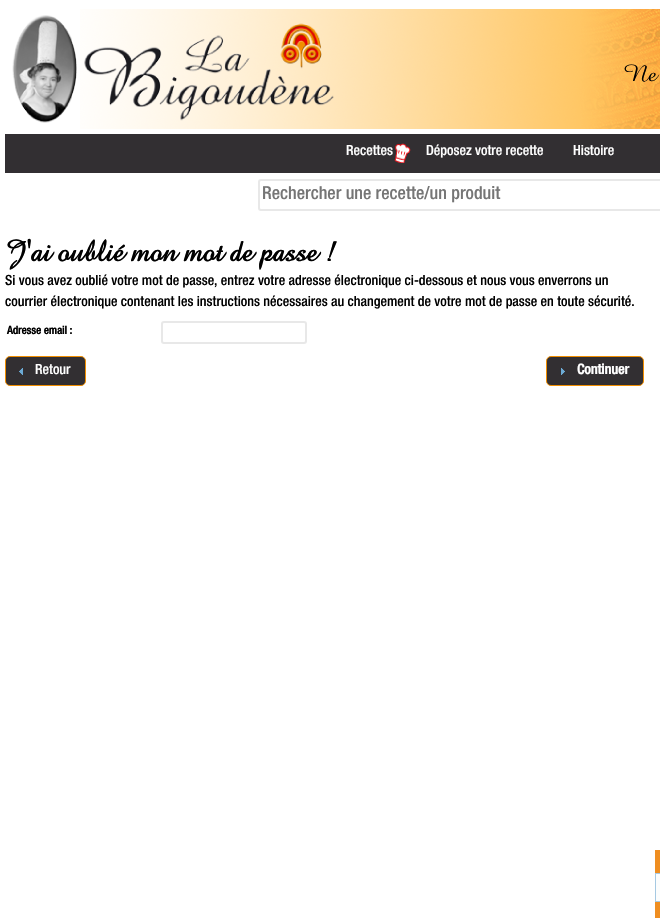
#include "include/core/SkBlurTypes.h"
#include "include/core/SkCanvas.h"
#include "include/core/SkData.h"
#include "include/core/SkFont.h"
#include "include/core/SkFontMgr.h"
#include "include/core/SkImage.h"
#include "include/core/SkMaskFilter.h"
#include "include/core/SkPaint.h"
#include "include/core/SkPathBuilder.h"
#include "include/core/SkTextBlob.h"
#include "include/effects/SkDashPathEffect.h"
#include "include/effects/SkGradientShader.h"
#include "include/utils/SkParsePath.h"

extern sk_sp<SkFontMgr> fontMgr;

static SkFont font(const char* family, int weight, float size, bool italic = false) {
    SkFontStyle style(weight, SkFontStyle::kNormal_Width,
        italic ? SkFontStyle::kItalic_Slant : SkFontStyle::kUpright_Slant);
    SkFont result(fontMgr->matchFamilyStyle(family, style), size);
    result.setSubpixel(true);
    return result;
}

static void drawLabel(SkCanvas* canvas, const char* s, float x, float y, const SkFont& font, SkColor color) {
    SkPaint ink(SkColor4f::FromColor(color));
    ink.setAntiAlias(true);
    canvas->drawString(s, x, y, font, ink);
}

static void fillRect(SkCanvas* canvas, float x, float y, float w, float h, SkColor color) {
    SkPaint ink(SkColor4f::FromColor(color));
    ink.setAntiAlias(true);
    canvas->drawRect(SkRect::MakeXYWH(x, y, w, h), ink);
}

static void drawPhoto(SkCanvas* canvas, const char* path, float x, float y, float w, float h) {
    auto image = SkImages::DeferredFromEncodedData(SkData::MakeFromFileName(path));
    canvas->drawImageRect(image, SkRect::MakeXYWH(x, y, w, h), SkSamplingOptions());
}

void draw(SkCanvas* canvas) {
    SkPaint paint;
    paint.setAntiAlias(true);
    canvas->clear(0xFFFFFFFF);
    drawPhoto(canvas, "assets/img1.png", 80, 9, 580, 120);
    drawPhoto(canvas, "assets/img2.png", 12, 15, 322, 108);
    SkFont font1 = font("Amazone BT", 400, 24);
    drawLabel(canvas, "Ne", 623, 81, font1, 0xFF000000);
    fillRect(canvas, 5, 134, 655, 39, 0xFF322F32);
    drawPhoto(canvas, "assets/img3.png", 394, 143, 17, 20);
    SkFont font2 = font("Helvetica Neue", 500, 14);
    drawLabel(canvas, "Recettes", 346, 155, font2, 0xFFFFFFFF);
    drawLabel(canvas, "Déposez votre recette", 426, 155, font2, 0xFFFFFFFF);
    drawLabel(canvas, "Histoire", 573, 155, font2, 0xFFFFFFFF);
    paint.setStroke(true);
    paint.setStrokeWidth(2);
    paint.setColor(0xFFE8E8E8);
    canvas->drawRoundRect(SkRect::MakeXYWH(259, 180, 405, 30), 2, 2, paint);
    SkFont font3 = font("Helvetica Neue", 500, 18);
    drawLabel(canvas, "Rechercher une recette/un produit", 262, 199, font3, 0xFF757575);
    SkFont font4 = font("Amazone BT", 700, 30);
    drawLabel(canvas, "J'ai oublié mon mot de passe !", 5, 261, font4, 0xFF000000);
    drawLabel(canvas, "Si vous avez oublié votre mot de passe, entrez votre adresse électronique ci-dessous et nous vous enverrons un", 5, 285, font2, 0xFF000000);
    drawLabel(canvas, "courrier électronique contenant les instructions nécessaires au changement de votre mot de passe en toute sécurité.", 5, 306, font2, 0xFF000000);
    SkFont font5 = font("Helvetica Neue", 700, 11);
    drawLabel(canvas, "Adresse email :", 7, 334, font5, 0xFF000000);
    canvas->drawRoundRect(SkRect::MakeXYWH(162, 322, 144, 21), 2, 2, paint);
    paint.setStroke(false);
    paint.setColor(0xFF322F32);
    canvas->drawRoundRect(SkRect::MakeXYWH(5.5f, 356.5f, 80, 29), 4.5f, 4.5f, paint);
    paint.setStroke(true);
    paint.setStrokeWidth(1);
    paint.setColor(0xFFF18E00);
    canvas->drawRoundRect(SkRect::MakeXYWH(5.5f, 356.5f, 80, 29), 4.5f, 4.5f, paint);
    drawPhoto(canvas, "assets/img4.png", 19, 368, 4, 7);
    drawLabel(canvas, "Retour", 35, 374, font2, 0xFFFFFFFF);
    paint.setStroke(false);
    paint.setColor(0xFF322F32);
    canvas->drawRoundRect(SkRect::MakeXYWH(546.5f, 356.5f, 97, 29), 4.5f, 4.5f, paint);
    paint.setStroke(true);
    paint.setColor(0xFFF18E00);
    canvas->drawRoundRect(SkRect::MakeXYWH(546.5f, 356.5f, 97, 29), 4.5f, 4.5f, paint);
    drawPhoto(canvas, "assets/img5.png", 561, 368, 4, 7);
    SkFont font6 = font("Helvetica Neue", 700, 14);
    drawLabel(canvas, "Continuer", 577, 374, font6, 0xFFFFFFFF);
    fillRect(canvas, 655, 850, 5, 23, 0xFFEF8E21);
    paint.setStroke(false);
    paint.setColor(0xFFFCFDFD);
    canvas->drawRect(SkRect::MakeXYWH(655.5f, 873.5f, 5, 28), paint);
    paint.setStroke(true);
    paint.setColor(0xFFA6C9E2);
    canvas->drawRect(SkRect::MakeXYWH(655.5f, 873.5f, 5, 28), paint);
    fillRect(canvas, 655, 902, 5, 16, 0xFFEF8E21);
}
